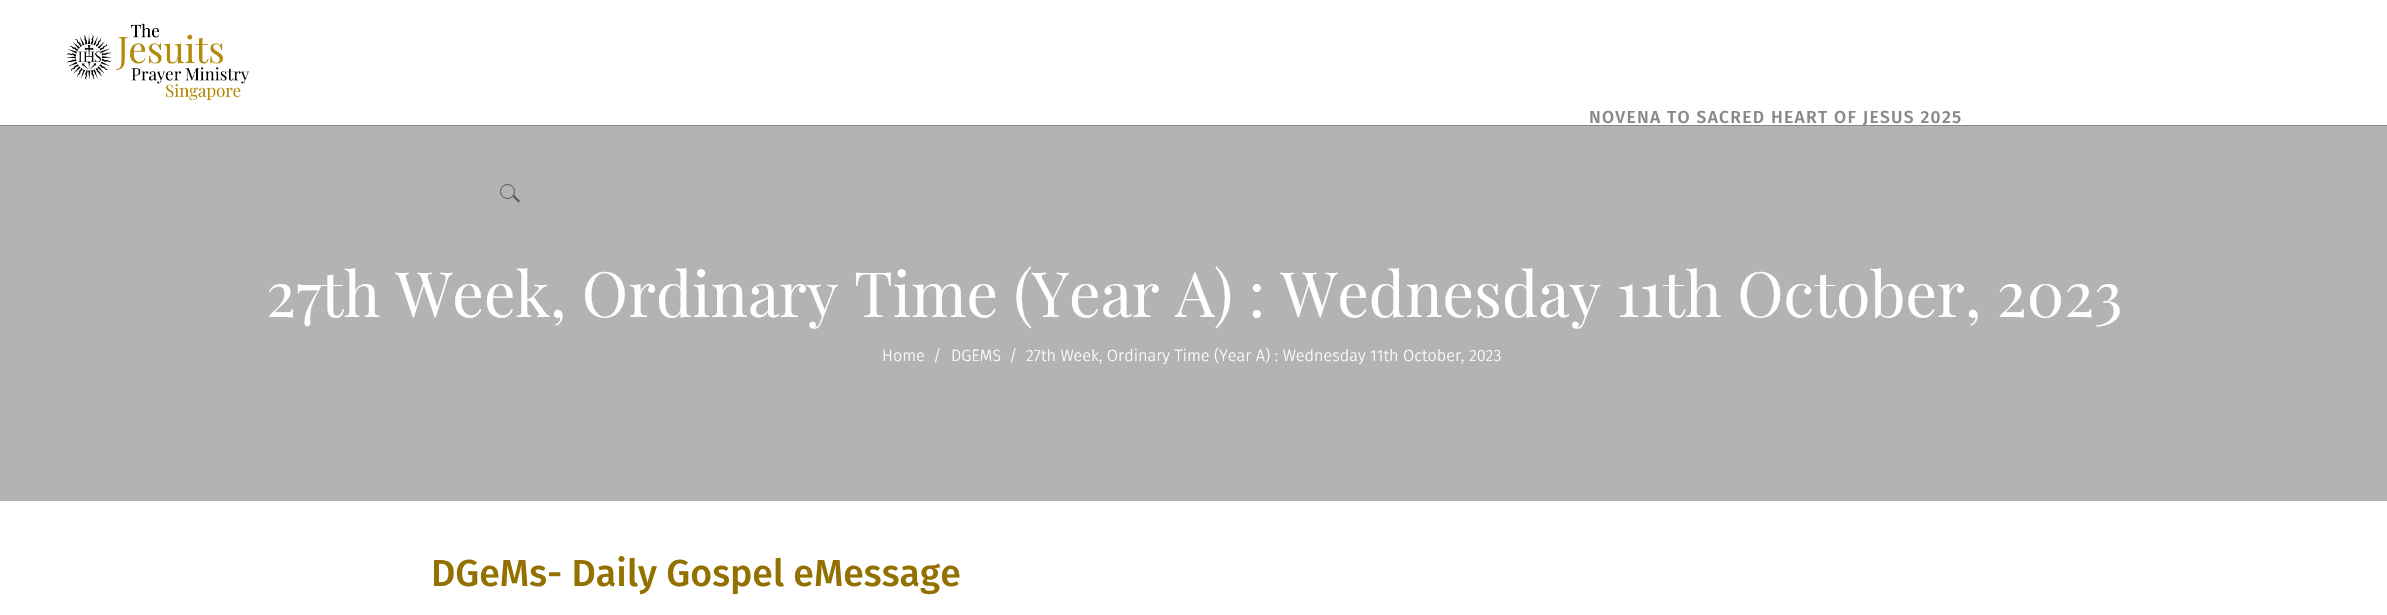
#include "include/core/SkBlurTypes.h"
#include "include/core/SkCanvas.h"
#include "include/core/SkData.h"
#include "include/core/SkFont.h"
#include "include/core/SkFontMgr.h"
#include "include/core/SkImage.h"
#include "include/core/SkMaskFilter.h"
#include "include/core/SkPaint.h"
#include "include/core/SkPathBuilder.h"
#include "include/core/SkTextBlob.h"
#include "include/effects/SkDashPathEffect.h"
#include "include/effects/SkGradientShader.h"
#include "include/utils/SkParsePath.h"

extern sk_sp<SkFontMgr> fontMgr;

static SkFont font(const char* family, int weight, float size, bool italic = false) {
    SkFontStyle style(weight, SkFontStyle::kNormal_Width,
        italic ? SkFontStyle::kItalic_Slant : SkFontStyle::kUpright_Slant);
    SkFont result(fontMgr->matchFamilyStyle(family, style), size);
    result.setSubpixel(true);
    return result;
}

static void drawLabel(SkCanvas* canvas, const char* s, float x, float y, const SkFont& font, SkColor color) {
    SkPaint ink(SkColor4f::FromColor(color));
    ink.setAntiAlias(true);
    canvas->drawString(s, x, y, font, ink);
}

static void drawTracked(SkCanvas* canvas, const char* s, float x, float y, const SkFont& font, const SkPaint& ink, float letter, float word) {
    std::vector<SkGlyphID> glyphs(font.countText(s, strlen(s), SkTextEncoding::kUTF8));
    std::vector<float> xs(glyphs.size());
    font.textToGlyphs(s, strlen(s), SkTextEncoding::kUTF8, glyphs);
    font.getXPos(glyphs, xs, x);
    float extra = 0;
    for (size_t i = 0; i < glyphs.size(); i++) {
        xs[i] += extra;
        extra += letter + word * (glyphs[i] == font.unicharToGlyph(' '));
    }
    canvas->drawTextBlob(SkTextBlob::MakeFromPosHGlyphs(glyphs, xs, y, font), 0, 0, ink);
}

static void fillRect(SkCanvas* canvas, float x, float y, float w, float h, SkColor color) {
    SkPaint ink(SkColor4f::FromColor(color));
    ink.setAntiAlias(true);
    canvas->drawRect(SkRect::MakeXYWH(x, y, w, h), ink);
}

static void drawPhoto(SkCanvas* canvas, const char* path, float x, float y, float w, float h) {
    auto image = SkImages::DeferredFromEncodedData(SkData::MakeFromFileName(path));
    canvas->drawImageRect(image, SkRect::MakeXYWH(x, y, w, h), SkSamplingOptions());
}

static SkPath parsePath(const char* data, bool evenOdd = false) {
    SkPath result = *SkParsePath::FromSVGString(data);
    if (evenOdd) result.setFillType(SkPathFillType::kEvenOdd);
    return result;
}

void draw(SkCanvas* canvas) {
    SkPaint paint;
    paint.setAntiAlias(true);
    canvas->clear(0xFFFFFFFF);
    fillRect(canvas, 0, 125, 2387, 1, 0xFF888888);
    drawPhoto(canvas, "assets/img1.png", 66, 23, 184, 78);
    SkFont font1 = font("Fira Sans", 500, 17.5f);
    paint.setColor(0xFF888888);
    drawTracked(canvas, "NOVENA TO SACRED HEART OF JESUS 2025", 1589, 123, font1, paint, 1.25f, 0);
    fillRect(canvas, 0, 126, 2387, 375, 0xFFB3B3B3);
    paint.setColor(0xFF555555);
    canvas->drawPath(parsePath("M512.5 196.5L514 195L520 201L518.5 202.5Z"), paint);
    paint.setStroke(true);
    paint.setStrokeWidth(1);
    canvas->drawCircle(507.5f, 191.5f, 7, paint);
    SkFont font2 = font("Playfair Display", 400, 62.5f);
    drawLabel(canvas, "27th Week, Ordinary Time (Year A) : Wednesday 11th October, 2023", 266, 317, font2, 0xFFFFFFFF);
    SkFont font3 = font("Fira Sans", 300, 16.25f);
    drawLabel(canvas, "Home", 882, 361, font3, 0xFFFFFFFF);
    drawLabel(canvas, "/", 933, 361, font3, 0xFFFFFFFF);
    drawLabel(canvas, "DGEMS", 951, 361, font3, 0xFFFFFFFF);
    drawLabel(canvas, "/", 1009, 361, font3, 0xFFFFFFFF);
    drawLabel(canvas, "27th Week, Ordinary Time (Year A) : Wednesday 11th October, 2023", 1026, 361, font3, 0xFFFFFFFF);
    SkFont font4 = font("Fira Sans", 500, 37.5f);
    drawLabel(canvas, "DGeMs- Daily Gospel eMessage", 431, 586, font4, 0xFF937100);
}
